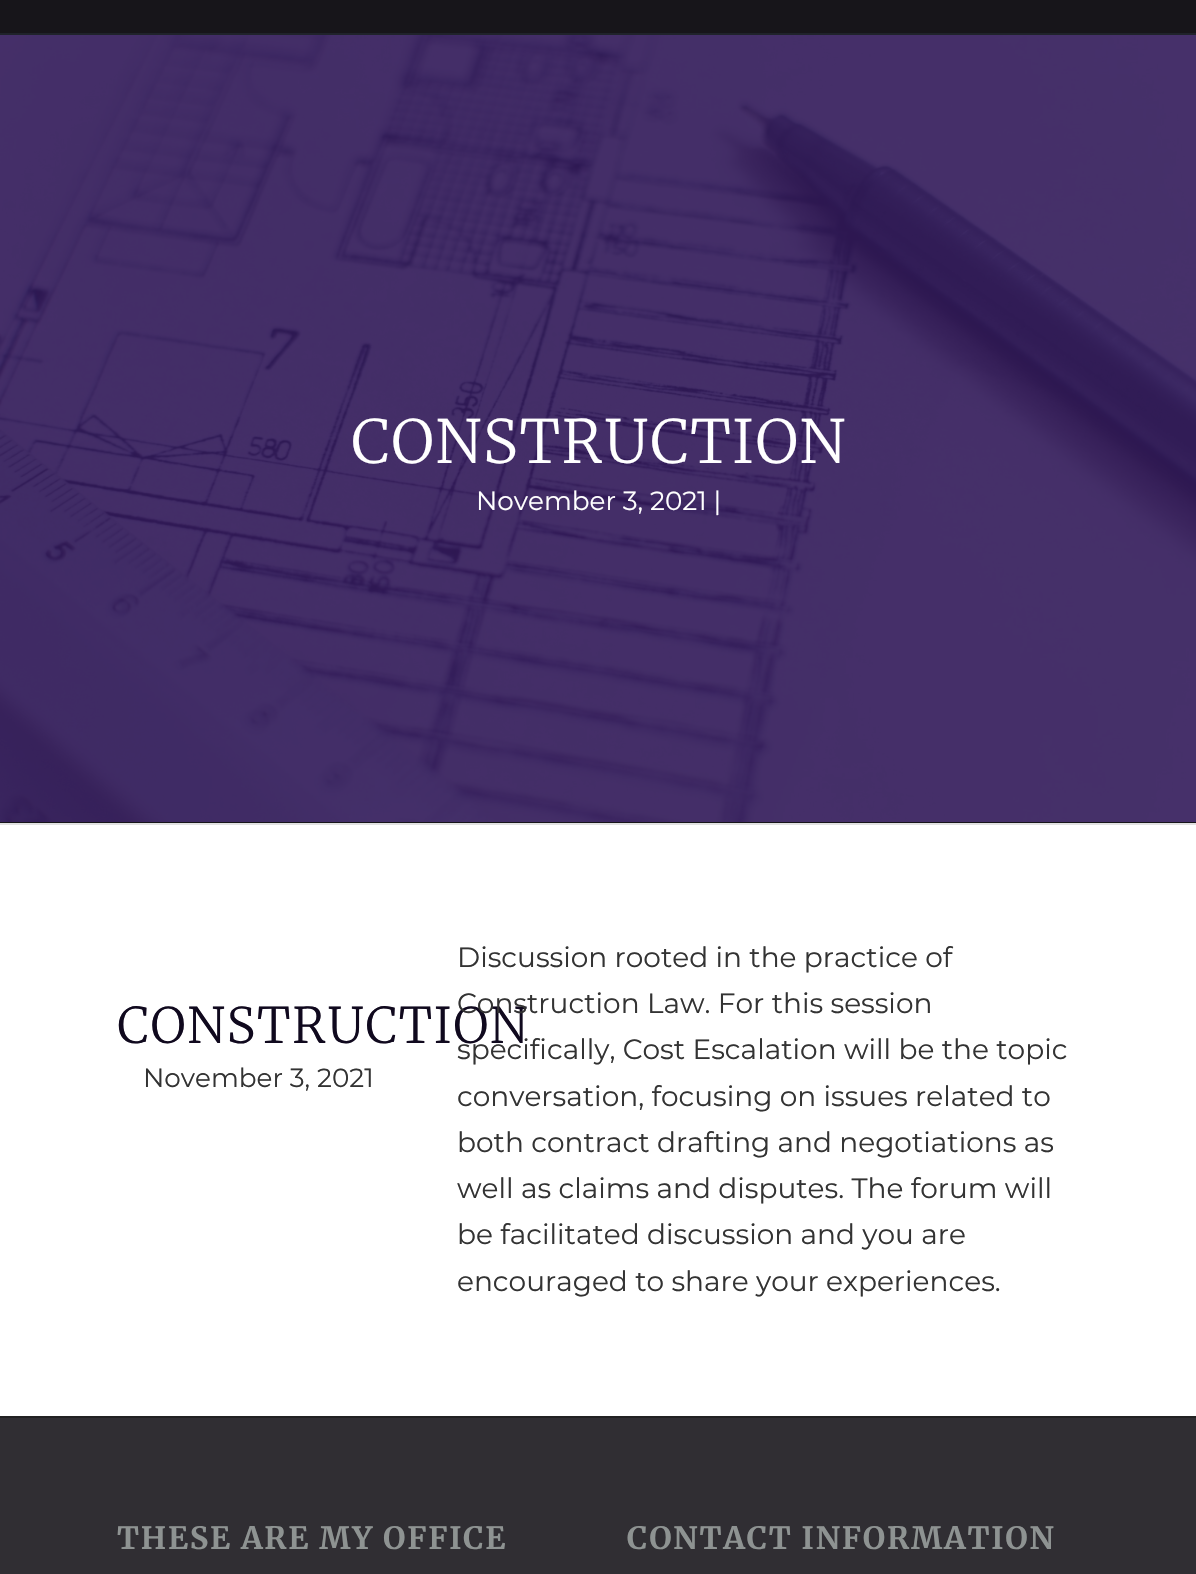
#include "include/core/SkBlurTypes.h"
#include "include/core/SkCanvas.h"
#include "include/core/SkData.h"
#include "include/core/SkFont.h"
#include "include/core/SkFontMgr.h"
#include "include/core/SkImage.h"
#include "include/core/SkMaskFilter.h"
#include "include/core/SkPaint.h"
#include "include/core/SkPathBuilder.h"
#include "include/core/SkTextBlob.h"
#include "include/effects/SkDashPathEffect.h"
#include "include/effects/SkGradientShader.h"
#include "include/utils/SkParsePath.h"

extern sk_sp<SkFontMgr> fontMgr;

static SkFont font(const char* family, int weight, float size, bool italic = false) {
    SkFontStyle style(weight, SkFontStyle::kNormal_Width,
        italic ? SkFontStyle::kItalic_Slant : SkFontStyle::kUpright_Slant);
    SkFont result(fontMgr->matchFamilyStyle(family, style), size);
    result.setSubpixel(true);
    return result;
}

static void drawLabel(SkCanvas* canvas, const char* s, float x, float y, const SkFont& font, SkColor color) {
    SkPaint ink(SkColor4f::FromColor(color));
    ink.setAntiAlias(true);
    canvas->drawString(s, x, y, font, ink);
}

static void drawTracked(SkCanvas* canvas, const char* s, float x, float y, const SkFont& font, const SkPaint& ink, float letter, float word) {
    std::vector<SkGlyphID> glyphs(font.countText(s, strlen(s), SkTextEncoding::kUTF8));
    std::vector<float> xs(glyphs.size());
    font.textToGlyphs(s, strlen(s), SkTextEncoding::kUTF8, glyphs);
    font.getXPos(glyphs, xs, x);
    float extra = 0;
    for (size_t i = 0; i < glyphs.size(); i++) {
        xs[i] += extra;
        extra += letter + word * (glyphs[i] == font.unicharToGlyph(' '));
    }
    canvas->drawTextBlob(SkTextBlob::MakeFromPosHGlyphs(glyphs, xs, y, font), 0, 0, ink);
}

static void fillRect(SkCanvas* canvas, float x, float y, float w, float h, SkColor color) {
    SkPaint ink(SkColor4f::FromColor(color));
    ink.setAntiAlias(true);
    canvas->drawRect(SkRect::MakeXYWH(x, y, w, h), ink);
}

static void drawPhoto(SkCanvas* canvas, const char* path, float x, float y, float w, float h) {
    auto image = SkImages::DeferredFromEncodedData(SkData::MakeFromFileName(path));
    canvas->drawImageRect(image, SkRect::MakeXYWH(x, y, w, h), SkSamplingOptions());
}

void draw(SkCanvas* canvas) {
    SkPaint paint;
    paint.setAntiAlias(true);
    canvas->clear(0xFF17151A);
    fillRect(canvas, 0, 33, 1196, 2, 0xFF20232B);
    drawPhoto(canvas, "assets/img1.png", 0, 35, 1196, 787);
    SkFont font1 = font("Merriweather", 300, 59.5f);
    paint.setColor(0xFFFFFFFF);
    drawTracked(canvas, "CONSTRUCTION", 351, 463, font1, paint, 1.75f, 0);
    SkFont font2 = font("Montserrat", 100, 26.25f);
    drawLabel(canvas, "November 3, 2021 |", 476, 510, font2, 0xFFFFFFFF);
    fillRect(canvas, 0, 825, 1196, 591, 0xFFFFFFFF);
    fillRect(canvas, 0, 823, 1196, 2, 0xFFE1E1E1);
    SkFont font3 = font("Merriweather", 300, 49);
    paint.setColor(0xFF10091E);
    drawTracked(canvas, "CONSTRUCTION", 117, 1043, font3, paint, 1.75f, 0);
    drawLabel(canvas, "November 3, 2021", 143, 1087, font2, 0xFF333333);
    SkFont font4 = font("Montserrat", 100, 28);
    drawLabel(canvas, "Discussion rooted in the practice of", 457, 967, font4, 0xFF333333);
    drawLabel(canvas, "Construction Law. For this session", 457, 1013, font4, 0xFF333333);
    drawLabel(canvas, "specifically, Cost Escalation will be the topic", 457, 1059, font4, 0xFF333333);
    drawLabel(canvas, "conversation, focusing on issues related to", 457, 1106, font4, 0xFF333333);
    drawLabel(canvas, "both contract drafting and negotiations as", 457, 1152, font4, 0xFF333333);
    drawLabel(canvas, "well as claims and disputes. The forum will", 457, 1198, font4, 0xFF333333);
    drawLabel(canvas, "be facilitated discussion and you are", 457, 1244, font4, 0xFF333333);
    drawLabel(canvas, "encouraged to share your experiences.", 457, 1291, font4, 0xFF333333);
    fillRect(canvas, 0, 1418, 1196, 156, 0xFF302E33);
    fillRect(canvas, 0, 1416, 1196, 2, 0xFF222222);
    SkFont font5 = font("Merriweather", 700, 30.75f);
    paint.setColor(0xFF8E9392);
    drawTracked(canvas, "THESE ARE MY OFFICE", 117, 1549, font5, paint, 1.75f, 0);
    drawTracked(canvas, "CONTACT INFORMATION", 627, 1549, font5, paint, 1.75f, 0);
}
